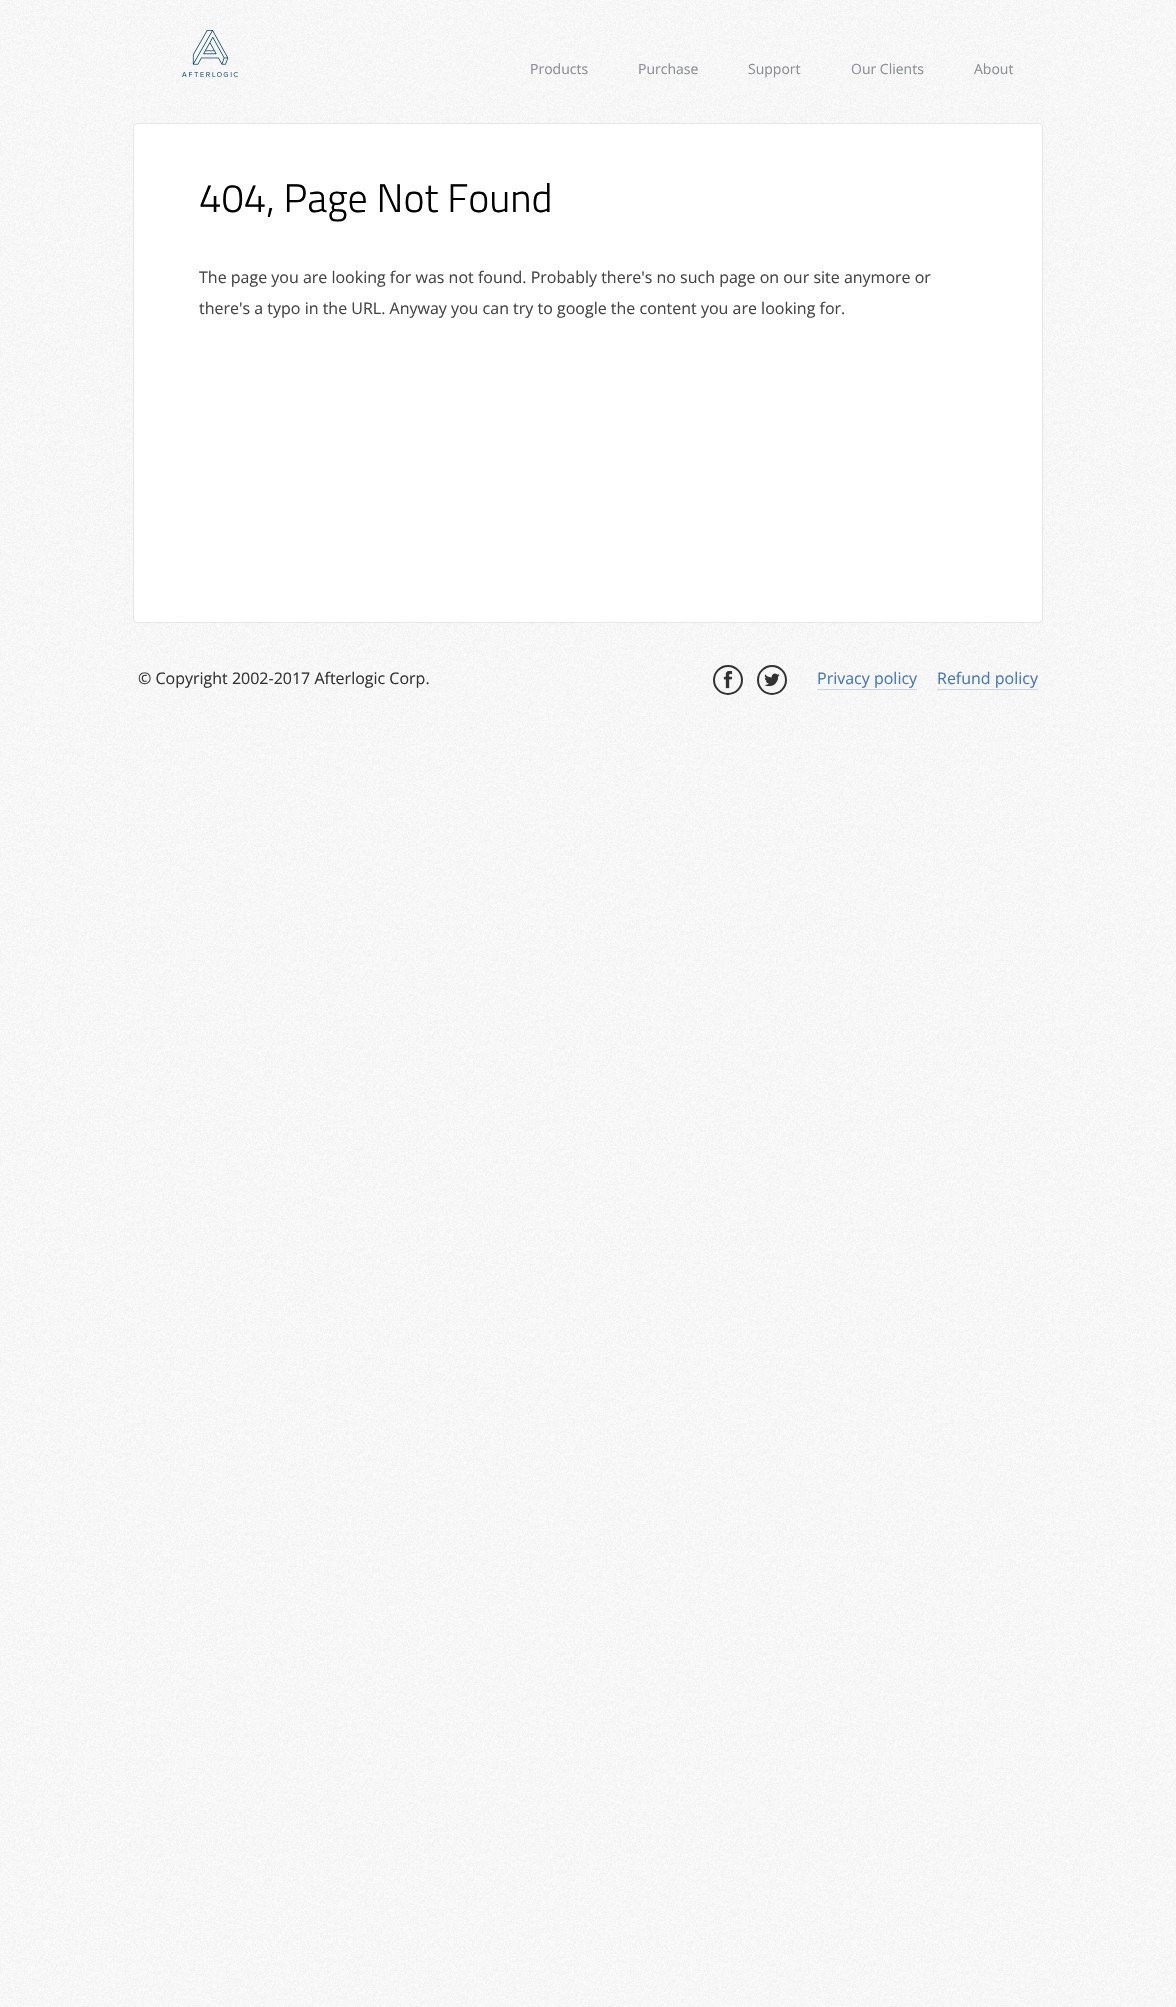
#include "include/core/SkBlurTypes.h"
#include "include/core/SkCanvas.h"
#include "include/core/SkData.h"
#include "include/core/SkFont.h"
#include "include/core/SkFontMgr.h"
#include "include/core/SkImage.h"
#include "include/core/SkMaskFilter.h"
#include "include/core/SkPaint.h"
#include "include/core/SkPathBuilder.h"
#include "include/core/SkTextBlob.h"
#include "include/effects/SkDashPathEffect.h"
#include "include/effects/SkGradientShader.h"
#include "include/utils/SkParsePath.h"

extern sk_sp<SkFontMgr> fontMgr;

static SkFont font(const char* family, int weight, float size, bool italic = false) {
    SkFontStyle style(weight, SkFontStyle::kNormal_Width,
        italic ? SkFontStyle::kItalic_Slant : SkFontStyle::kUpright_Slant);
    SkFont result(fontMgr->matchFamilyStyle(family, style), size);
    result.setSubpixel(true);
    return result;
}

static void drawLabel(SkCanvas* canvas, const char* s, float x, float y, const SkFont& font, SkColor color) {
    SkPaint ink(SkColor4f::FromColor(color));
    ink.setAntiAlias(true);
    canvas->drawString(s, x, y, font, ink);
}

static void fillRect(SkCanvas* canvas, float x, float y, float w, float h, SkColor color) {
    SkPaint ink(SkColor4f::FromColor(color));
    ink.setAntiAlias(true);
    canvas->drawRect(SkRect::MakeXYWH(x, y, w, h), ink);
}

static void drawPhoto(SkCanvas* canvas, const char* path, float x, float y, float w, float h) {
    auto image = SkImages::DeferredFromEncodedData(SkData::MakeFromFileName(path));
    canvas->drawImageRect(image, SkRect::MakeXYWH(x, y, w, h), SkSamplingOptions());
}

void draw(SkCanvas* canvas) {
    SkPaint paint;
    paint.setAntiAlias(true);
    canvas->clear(0xFFFFFFFF);
    drawPhoto(canvas, "assets/img1.png", 0, 0, 1176, 2007);
    drawPhoto(canvas, "assets/img2.png", 182, 30, 56, 47);
    SkFont font1 = font("Open Sans", 400, 14);
    drawLabel(canvas, "Products", 530, 74, font1, 0xFF8B8F92);
    drawLabel(canvas, "Purchase", 638, 74, font1, 0xFF8B8F92);
    drawLabel(canvas, "Support", 748, 74, font1, 0xFF8B8F92);
    drawLabel(canvas, "Our Clients", 851, 74, font1, 0xFF8B8F92);
    drawLabel(canvas, "About", 974, 74, font1, 0xFF8B8F92);
    paint.setColor(0xFFFFFFFF);
    canvas->drawRoundRect(SkRect::MakeXYWH(133.5f, 123.5f, 909, 499), 3.5f, 3.5f, paint);
    paint.setStroke(true);
    paint.setStrokeWidth(1);
    paint.setColor(0xFFE6E6E6);
    canvas->drawRoundRect(SkRect::MakeXYWH(133.5f, 123.5f, 909, 499), 3.5f, 3.5f, paint);
    SkFont font2 = font("Titillium Web", 300, 40);
    drawLabel(canvas, "404, Page Not Found", 199, 212, font2, 0xFF000000);
    SkFont font3 = font("Open Sans", 400, 16);
    drawLabel(canvas, "The page you are looking for was not found. Probably there's no such page on our site anymore or", 199, 283, font3, 0xFF444444);
    drawLabel(canvas, "there's a typo in the URL. Anyway you can try to google the content you are looking for.", 199, 314, font3, 0xFF444444);
    drawLabel(canvas, "© Copyright 2002-2017 Afterlogic Corp.", 138, 684, font3, 0xFF333333);
    paint.setStrokeWidth(2);
    paint.setColor(0xCC000000);
    canvas->drawCircle(728, 680, 14, paint);
    drawPhoto(canvas, "assets/img3.png", 723, 671, 10, 18);
    canvas->drawCircle(772, 680, 14, paint);
    drawPhoto(canvas, "assets/img4.png", 764, 673, 16, 14);
    drawLabel(canvas, "Privacy policy", 817, 684, font3, 0xFF4477BB);
    fillRect(canvas, 817, 689, 100, 1, 0x546992C8);
    drawLabel(canvas, "Refund policy", 937, 684, font3, 0xFF4477BB);
    fillRect(canvas, 937, 689, 101, 1, 0x546992C8);
}
